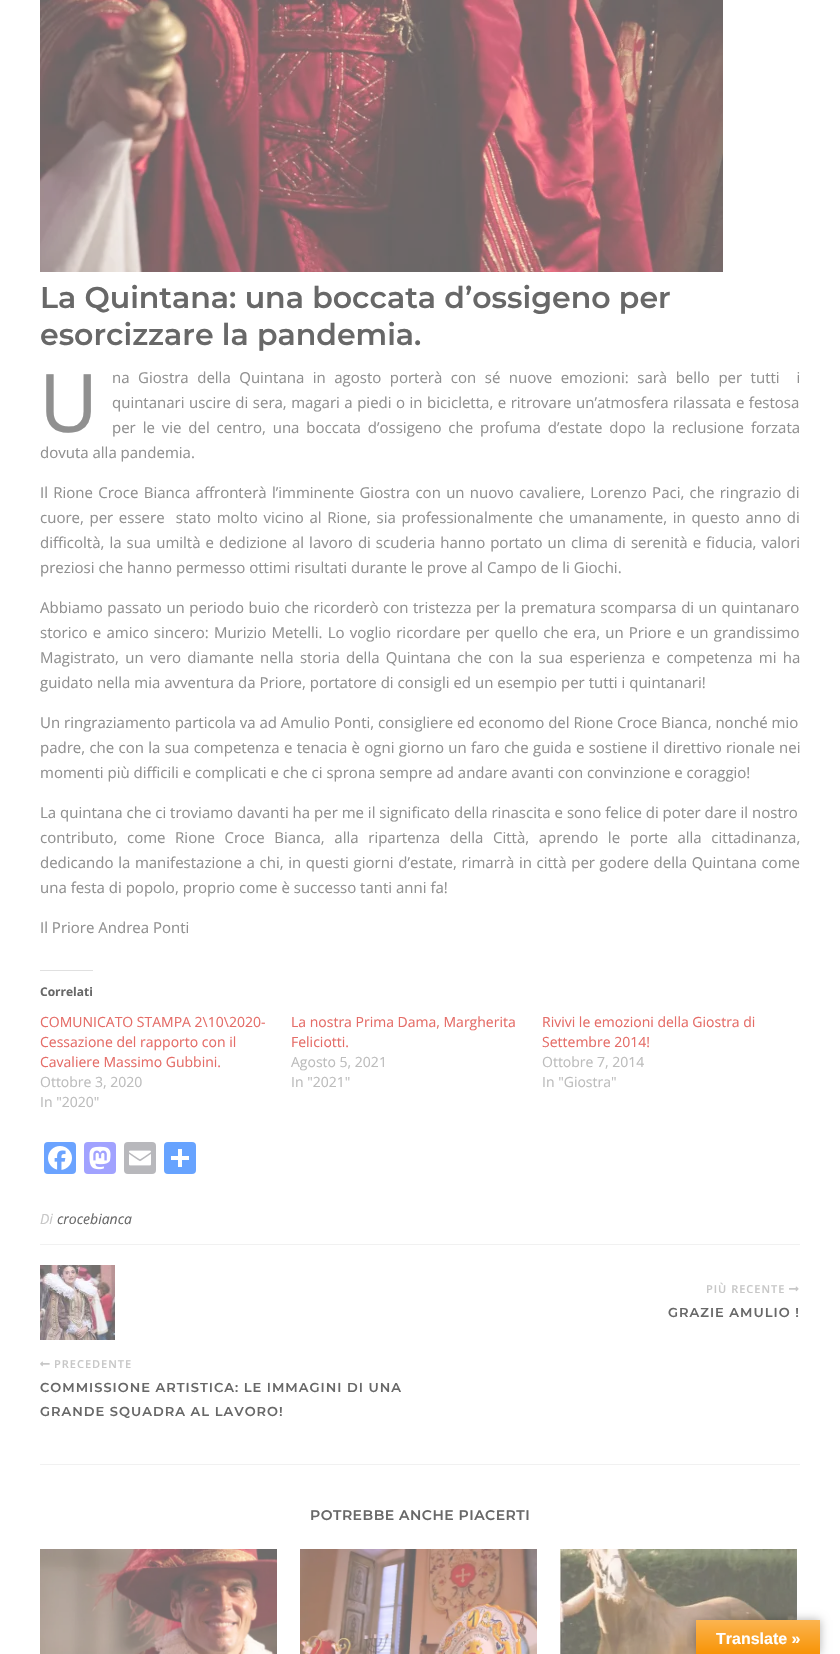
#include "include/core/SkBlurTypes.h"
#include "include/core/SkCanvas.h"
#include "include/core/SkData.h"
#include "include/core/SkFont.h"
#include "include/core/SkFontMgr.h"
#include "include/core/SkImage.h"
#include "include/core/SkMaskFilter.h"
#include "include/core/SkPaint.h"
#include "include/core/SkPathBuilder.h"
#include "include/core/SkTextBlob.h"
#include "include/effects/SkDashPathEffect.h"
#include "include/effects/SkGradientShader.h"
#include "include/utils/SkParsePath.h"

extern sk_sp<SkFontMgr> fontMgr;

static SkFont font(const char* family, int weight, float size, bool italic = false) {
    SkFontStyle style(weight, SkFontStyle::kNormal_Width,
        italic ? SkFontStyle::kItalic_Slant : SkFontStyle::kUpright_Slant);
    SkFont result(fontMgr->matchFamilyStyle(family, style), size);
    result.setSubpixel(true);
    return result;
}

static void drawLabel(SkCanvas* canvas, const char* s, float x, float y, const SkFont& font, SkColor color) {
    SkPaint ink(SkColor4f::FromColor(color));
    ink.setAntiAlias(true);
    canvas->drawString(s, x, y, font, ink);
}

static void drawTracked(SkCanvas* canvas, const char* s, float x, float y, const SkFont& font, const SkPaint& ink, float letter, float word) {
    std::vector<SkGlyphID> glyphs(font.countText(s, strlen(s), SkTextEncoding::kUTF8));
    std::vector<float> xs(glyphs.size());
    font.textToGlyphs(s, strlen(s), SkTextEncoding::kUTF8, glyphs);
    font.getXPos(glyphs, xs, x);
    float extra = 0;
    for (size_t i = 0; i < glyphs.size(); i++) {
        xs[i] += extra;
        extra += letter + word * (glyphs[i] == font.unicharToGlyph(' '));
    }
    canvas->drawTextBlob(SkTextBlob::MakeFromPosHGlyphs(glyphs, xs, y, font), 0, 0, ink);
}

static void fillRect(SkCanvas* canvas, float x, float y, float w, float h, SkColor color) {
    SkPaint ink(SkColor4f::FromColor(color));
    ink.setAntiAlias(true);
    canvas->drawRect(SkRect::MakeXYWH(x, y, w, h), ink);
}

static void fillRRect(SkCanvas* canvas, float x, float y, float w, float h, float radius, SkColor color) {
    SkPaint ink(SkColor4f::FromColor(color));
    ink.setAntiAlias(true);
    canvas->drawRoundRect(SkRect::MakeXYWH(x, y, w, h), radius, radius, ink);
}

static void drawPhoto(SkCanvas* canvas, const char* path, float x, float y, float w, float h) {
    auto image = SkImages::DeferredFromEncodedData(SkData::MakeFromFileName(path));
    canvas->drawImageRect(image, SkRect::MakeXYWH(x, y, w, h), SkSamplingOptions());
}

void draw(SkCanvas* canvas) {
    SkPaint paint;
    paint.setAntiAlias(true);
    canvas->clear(0xFFFFFFFF);
    drawPhoto(canvas, "assets/img1.png", 40, 0, 683, 272);
    SkFont font1 = font("Montserrat", 600, 30);
    drawLabel(canvas, "La Quintana: una boccata d’ossigeno per", 40, 308, font1, 0xFF686868);
    drawLabel(canvas, "esorcizzare la pandemia.", 40, 345, font1, 0xFF686868);
    SkFont font2 = font("Noto Sans", 400, 81);
    drawLabel(canvas, "U", 39, 432, font2, 0xFF909090);
    SkFont font3 = font("Open Sans", 400, 15);
    paint.setColor(0xFF909090);
    drawTracked(canvas, "na Giostra della Quintana in agosto porterà con sé nuove emozioni: sarà bello per tutti  i", 112, 383, font3, paint, 0, 4.6f);
    drawTracked(canvas, "quintanari uscire di sera, magari a piedi o in bicicletta, e ritrovare un’atmosfera rilassata e festosa", 112, 408, font3, paint, 0, 0.6f);
    drawTracked(canvas, "per le vie del centro, una boccata d’ossigeno che profuma d’estate dopo la reclusione forzata", 112, 433, font3, paint, 0, 3);
    drawLabel(canvas, "dovuta alla pandemia.", 40, 458, font3, 0xFF909090);
    drawTracked(canvas, "Il Rione Croce Bianca affronterà l’imminente Giostra con un nuovo cavaliere, Lorenzo Paci, che ringrazio di", 40, 498, font3, paint, 0, 1.4f);
    drawTracked(canvas, "cuore, per essere  stato molto vicino al Rione, sia professionalmente che umanamente, in questo anno di", 40, 523, font3, paint, 0, 1.75f);
    drawTracked(canvas, "difficoltà, la sua umiltà e dedizione al lavoro di scuderia hanno portato un clima di serenità e fiducia, valori", 40, 548, font3, paint, 0, 1.1f);
    drawLabel(canvas, "preziosi che hanno permesso ottimi risultati durante le prove al Campo de li Giochi.", 40, 573, font3, 0xFF909090);
    drawTracked(canvas, "Abbiamo passato un periodo buio che ricorderò con tristezza per la prematura scomparsa di un quintanaro", 40, 613, font3, paint, 0, 0.6f);
    drawTracked(canvas, "storico e amico sincero: Murizio Metelli. Lo voglio ricordare per quello che era, un Priore e un grandissimo", 40, 638, font3, paint, 0, 1.3f);
    drawTracked(canvas, "Magistrato, un vero diamante nella storia della Quintana che con la sua esperienza e competenza mi ha", 40, 663, font3, paint, 0, 2.4f);
    drawLabel(canvas, "guidato nella mia avventura da Priore, portatore di consigli ed un esempio per tutti i quintanari!", 40, 688, font3, 0xFF909090);
    drawLabel(canvas, "Un ringraziamento particola va ad Amulio Ponti, consigliere ed economo del Rione Croce Bianca, nonché mio", 40, 728, font3, 0xFF909090);
    drawTracked(canvas, "padre, che con la sua competenza e tenacia è ogni giorno un faro che guida e sostiene il direttivo rionale nei", 40, 753, font3, paint, 0, 0.4f);
    drawLabel(canvas, "momenti più difficili e complicati e che ci sprona sempre ad andare avanti con convinzione e coraggio!", 40, 778, font3, 0xFF909090);
    drawLabel(canvas, "La quintana che ci troviamo davanti ha per me il significato della rinascita e sono felice di poter dare il nostro", 40, 818, font3, 0xFF909090);
    drawTracked(canvas, "contributo, come Rione Croce Bianca, alla ripartenza della Città, aprendo le porte alla cittadinanza,", 40, 843, font3, paint, 0, 5.75f);
    drawTracked(canvas, "dedicando la manifestazione a chi, in questi giorni d’estate, rimarrà in città per godere della Quintana come", 40, 868, font3, paint, 0, 0.75f);
    drawLabel(canvas, "una festa di popolo, proprio come è successo tanti anni fa!", 40, 893, font3, 0xFF909090);
    drawLabel(canvas, "Il Priore Andrea Ponti", 40, 933, font3, 0xFF909090);
    fillRect(canvas, 40, 970, 53, 1, 0xFFE0E0E0);
    SkFont font4 = font("Open Sans", 700, 12);
    drawLabel(canvas, "Correlati", 40, 996, font4, 0xFF686868);
    SkFont font5 = font("Open Sans", 400, 14);
    drawLabel(canvas, "COMUNICATO STAMPA 2\\10\\2020-", 40, 1027, font5, 0xFFE56C67);
    drawLabel(canvas, "Cessazione del rapporto con il", 40, 1047, font5, 0xFFE56C67);
    drawLabel(canvas, "Cavaliere Massimo Gubbini.", 40, 1067, font5, 0xFFE56C67);
    drawLabel(canvas, "Ottobre 3, 2020", 40, 1087, font5, 0xFFBCBCBC);
    drawLabel(canvas, "In \"2020\"", 40, 1107, font5, 0xFFBCBCBC);
    drawLabel(canvas, "La nostra Prima Dama, Margherita", 291, 1027, font5, 0xFFE56C67);
    drawLabel(canvas, "Feliciotti.", 291, 1047, font5, 0xFFE56C67);
    drawLabel(canvas, "Agosto 5, 2021", 291, 1067, font5, 0xFFBCBCBC);
    drawLabel(canvas, "In \"2021\"", 291, 1087, font5, 0xFFBCBCBC);
    drawLabel(canvas, "Rivivi le emozioni della Giostra di", 542, 1027, font5, 0xFFE56C67);
    drawLabel(canvas, "Settembre 2014!", 542, 1047, font5, 0xFFE56C67);
    drawLabel(canvas, "Ottobre 7, 2014", 542, 1067, font5, 0xFFBCBCBC);
    drawLabel(canvas, "In \"Giostra\"", 542, 1087, font5, 0xFFBCBCBC);
    fillRRect(canvas, 44, 1142, 32, 32, 4, 0xFF6BA3FF);
    drawPhoto(canvas, "assets/img2.png", 48, 1146, 24, 24);
    fillRRect(canvas, 84, 1142, 32, 32, 4, 0xFFA1A2FF);
    drawPhoto(canvas, "assets/img3.png", 89, 1146, 22, 24);
    fillRRect(canvas, 124, 1142, 32, 32, 4, 0xFFB8B8BC);
    drawPhoto(canvas, "assets/img4.png", 129, 1150, 22, 16);
    fillRRect(canvas, 164, 1142, 32, 32, 4, 0xFF67A3FF);
    fillRect(canvas, 178, 1149, 4, 18, 0xFFFFFFFF);
    fillRect(canvas, 171, 1156, 18, 4, 0xFFFFFFFF);
    fillRect(canvas, 40, 1244, 760, 1, 0xFFF1F1F1);
    SkFont font6 = font("Open Sans", 400, 14, true);
    drawLabel(canvas, "Di", 40, 1224, font6, 0xFFC7C7C7);
    drawLabel(canvas, "crocebianca", 57, 1224, font6, 0xFF686868);
    fillRect(canvas, 40, 1464, 760, 1, 0xFFF1F1F1);
    SkFont font7 = font("Open Sans", 600, 11);
    paint.setColor(0xFFC7C7C7);
    drawTracked(canvas, "PIÙ RECENTE", 706, 1293, font7, paint, 1, 0);
    drawPhoto(canvas, "assets/img5.png", 789, 1286, 10, 6);
    SkFont font8 = font("Montserrat", 600, 13);
    paint.setColor(0xFF686868);
    drawTracked(canvas, "GRAZIE AMULIO !", 668, 1317, font8, paint, 1, 0);
    drawPhoto(canvas, "assets/img6.png", 40, 1265, 75, 75);
    drawPhoto(canvas, "assets/img7.png", 40, 1361, 10, 6);
    paint.setColor(0xFFC7C7C7);
    drawTracked(canvas, "PRECEDENTE", 54, 1368, font7, paint, 1, 0);
    paint.setColor(0xFF686868);
    drawTracked(canvas, "COMMISSIONE ARTISTICA: LE IMMAGINI DI UNA", 40, 1392, font8, paint, 1, 0);
    drawTracked(canvas, "GRANDE SQUADRA AL LAVORO!", 40, 1416, font8, paint, 1, 0);
    SkFont font9 = font("Montserrat", 600, 14);
    drawTracked(canvas, "POTREBBE ANCHE PIACERTI", 310, 1520, font9, paint, 0.5f, 0);
    drawPhoto(canvas, "assets/img8.png", 40, 1549, 237, 105);
    drawPhoto(canvas, "assets/img9.png", 300, 1549, 237, 105);
    drawPhoto(canvas, "assets/img10.png", 560, 1549, 237, 105);
    paint.setColor(0x4D000000);
    paint.setMaskFilter(SkMaskFilter::MakeBlur(kNormal_SkBlurStyle, 4.5f));
    canvas->drawRect(SkRect::MakeXYWH(696, 1620, 124, 34), paint);
    paint.setMaskFilter(nullptr);
    {
        const SkColor colors[] = {0xFFFBB450, 0xFFF89406};
        const float stops[] = {0, 1};
        const SkPoint ends[] = {{758, 1620}, {758, 1654}};
        paint.setShader(SkGradientShader::MakeLinear(ends, colors, stops, 2, SkTileMode::kClamp));
        paint.setAlpha(255);
    }
    canvas->drawRect(SkRect::MakeXYWH(696, 1620, 124, 34), paint);
    SkFont font10 = font("Liberation Sans", 700, 16);
    drawLabel(canvas, "Translate »", 716, 1644, font10, 0xFFFFFFFF);
}
